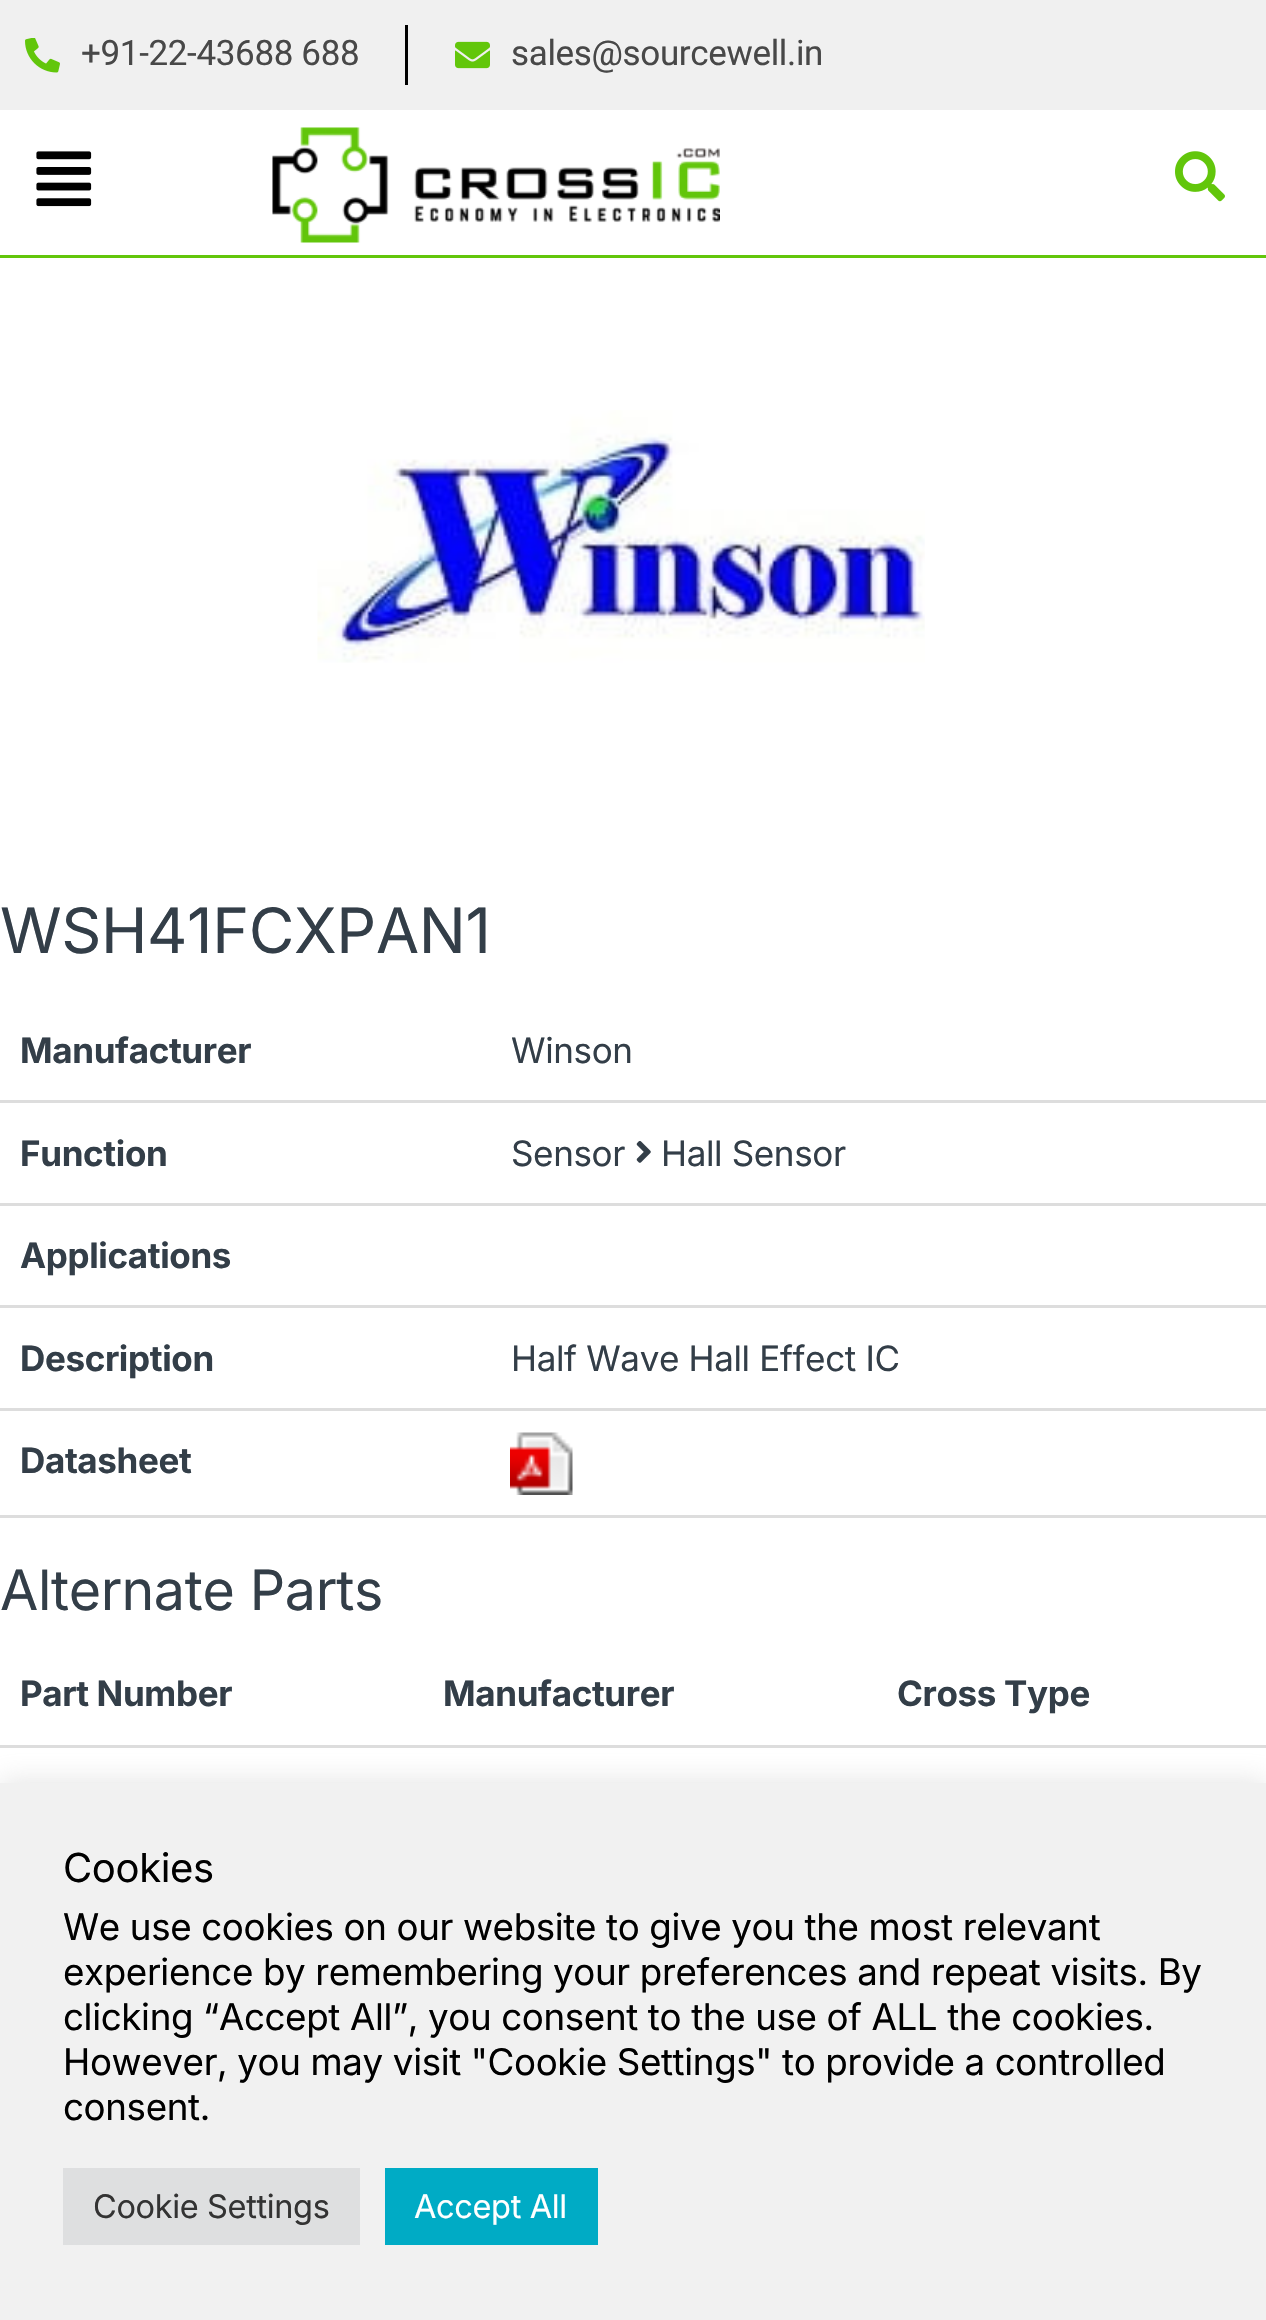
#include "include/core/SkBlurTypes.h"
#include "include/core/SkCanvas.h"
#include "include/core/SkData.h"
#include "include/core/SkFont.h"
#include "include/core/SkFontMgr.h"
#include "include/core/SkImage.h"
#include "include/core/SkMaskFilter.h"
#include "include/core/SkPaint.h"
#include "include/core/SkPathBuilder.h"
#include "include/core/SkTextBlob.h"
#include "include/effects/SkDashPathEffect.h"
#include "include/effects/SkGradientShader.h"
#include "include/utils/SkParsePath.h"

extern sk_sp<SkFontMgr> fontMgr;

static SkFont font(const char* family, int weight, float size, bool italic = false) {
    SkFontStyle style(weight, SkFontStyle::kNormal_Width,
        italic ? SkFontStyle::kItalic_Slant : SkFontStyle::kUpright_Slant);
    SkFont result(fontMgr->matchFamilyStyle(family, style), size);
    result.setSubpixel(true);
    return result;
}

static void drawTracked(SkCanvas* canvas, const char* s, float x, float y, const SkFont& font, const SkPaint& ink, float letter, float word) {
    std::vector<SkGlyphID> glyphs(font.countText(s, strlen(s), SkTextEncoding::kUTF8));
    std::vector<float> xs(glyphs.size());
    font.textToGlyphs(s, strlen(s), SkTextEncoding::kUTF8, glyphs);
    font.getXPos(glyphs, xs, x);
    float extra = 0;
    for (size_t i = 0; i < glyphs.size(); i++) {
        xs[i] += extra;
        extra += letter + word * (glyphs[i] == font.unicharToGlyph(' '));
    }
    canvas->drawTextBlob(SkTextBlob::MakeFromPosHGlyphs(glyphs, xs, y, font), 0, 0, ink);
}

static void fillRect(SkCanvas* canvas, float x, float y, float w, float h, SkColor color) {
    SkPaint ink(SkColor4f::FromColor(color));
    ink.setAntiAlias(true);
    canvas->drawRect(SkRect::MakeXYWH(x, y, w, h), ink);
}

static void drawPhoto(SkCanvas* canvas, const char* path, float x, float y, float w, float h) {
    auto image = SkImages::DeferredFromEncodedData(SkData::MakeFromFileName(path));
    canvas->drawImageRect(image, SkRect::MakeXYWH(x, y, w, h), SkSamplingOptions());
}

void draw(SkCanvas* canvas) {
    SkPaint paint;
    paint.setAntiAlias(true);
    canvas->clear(0xFFFFFFFF);
    fillRect(canvas, 0, 0, 1266, 110, 0xFFF0F0F0);
    drawPhoto(canvas, "assets/img1.png", 25, 38, 35, 35);
    SkFont font1 = font("Roboto", 400, 35);
    paint.setColor(0xFF484848);
    drawTracked(canvas, "+91-22-43688 688", 81, 65, font1, paint, -0.35f, 0);
    fillRect(canvas, 405, 25, 3, 60, 0xFF000000);
    drawPhoto(canvas, "assets/img2.png", 455, 41, 35, 28);
    drawTracked(canvas, "sales@sourcewell.in", 511, 65, font1, paint, -0.35f, 0);
    fillRect(canvas, 0, 255, 1266, 3, 0xFF62C60B);
    drawPhoto(canvas, "assets/img3.png", 36, 151, 56, 56);
    drawPhoto(canvas, "assets/img4.png", 272, 127, 448, 116);
    drawPhoto(canvas, "assets/img5.png", 1175, 151, 50, 51);
    drawPhoto(canvas, "assets/img6.png", 317, 410, 608, 253);
    SkFont font2 = font("Inter", 400, 62.5f);
    paint.setColor(0xFF333E48);
    drawTracked(canvas, "WSH41FCXPAN1", 0, 953, font2, paint, -0.35f, 0);
    SkFont font3 = font("Inter", 700, 35);
    drawTracked(canvas, "Manufacturer", 20, 1063, font3, paint, -0.35f, 0);
    fillRect(canvas, 0, 1100, 1266, 3, 0xFFDDDDDD);
    SkFont font4 = font("Inter", 400, 35);
    drawTracked(canvas, "Winson", 511, 1063, font4, paint, -0.35f, 0);
    drawTracked(canvas, "Function", 20, 1166, font3, paint, -0.35f, 0);
    fillRect(canvas, 0, 1203, 1266, 3, 0xFFDDDDDD);
    drawTracked(canvas, "Sensor", 511, 1166, font4, paint, -0.35f, 0);
    drawPhoto(canvas, "assets/img7.png", 636, 1141, 15, 22);
    drawTracked(canvas, "Hall Sensor", 661, 1166, font4, paint, -0.35f, 0);
    drawTracked(canvas, "Applications", 20, 1268, font3, paint, -0.35f, 0);
    fillRect(canvas, 0, 1305, 1266, 3, 0xFFDDDDDD);
    drawTracked(canvas, "Description", 20, 1371, font3, paint, -0.35f, 0);
    fillRect(canvas, 0, 1408, 1266, 3, 0xFFDDDDDD);
    drawTracked(canvas, "Half Wave Hall Effect IC", 511, 1371, font4, paint, -0.35f, 0);
    fillRect(canvas, 0, 1515, 1266, 3, 0xFFDDDDDD);
    drawPhoto(canvas, "assets/img8.png", 510, 1432, 63, 63);
    drawTracked(canvas, "Datasheet", 20, 1473, font3, paint, -0.35f, 0);
    SkFont font5 = font("Inter", 400, 55.5f);
    drawTracked(canvas, "Alternate Parts", 0, 1610, font5, paint, -0.35f, 0);
    drawTracked(canvas, "Part Number", 20, 1706, font3, paint, -0.35f, 0);
    drawTracked(canvas, "Manufacturer", 443, 1706, font3, paint, -0.35f, 0);
    fillRect(canvas, 0, 1745, 1266, 3, 0xFFDDDDDD);
    drawTracked(canvas, "Cross Type", 897, 1706, font3, paint, -0.35f, 0);
    paint.setColor(0x4DACABAB);
    paint.setMaskFilter(SkMaskFilter::MakeBlur(kNormal_SkBlurStyle, 12.5f));
    canvas->drawRect(SkRect::MakeXYWH(0, 1780, 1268, 538), paint);
    paint.setMaskFilter(nullptr);
    fillRect(canvas, 0, 1783, 1266, 537, 0xFFF1F1F1);
    SkFont font6 = font("Inter", 400, 40);
    paint.setColor(0xFF000000);
    drawTracked(canvas, "Cookies", 63, 1882, font6, paint, -0.35f, 0);
    SkFont font7 = font("Inter", 400, 36.7f);
    drawTracked(canvas, "We use cookies on our website to give you the most relevant", 63, 1940, font7, paint, -0.35f, 0);
    drawTracked(canvas, "experience by remembering your preferences and repeat visits. By", 63, 1985, font7, paint, -0.35f, 0);
    drawTracked(canvas, "clicking “Accept All”, you consent to the use of ALL the cookies.", 63, 2030, font7, paint, -0.35f, 0);
    drawTracked(canvas, "However, you may visit \"Cookie Settings\" to provide a controlled", 63, 2075, font7, paint, -0.35f, 0);
    drawTracked(canvas, "consent.", 63, 2120, font7, paint, -0.35f, 0);
    fillRect(canvas, 63, 2168, 297, 77, 0xFFDEDFE0);
    SkFont font8 = font("Inter", 400, 32.5f);
    paint.setColor(0xFF333333);
    drawTracked(canvas, "Cookie Settings", 93, 2218, font8, paint, -0.35f, 0);
    fillRect(canvas, 385, 2168, 213, 77, 0xFF00ABC5);
    paint.setColor(0xFFFFFFFF);
    drawTracked(canvas, "Accept All", 414, 2218, font8, paint, -0.35f, 0);
}
